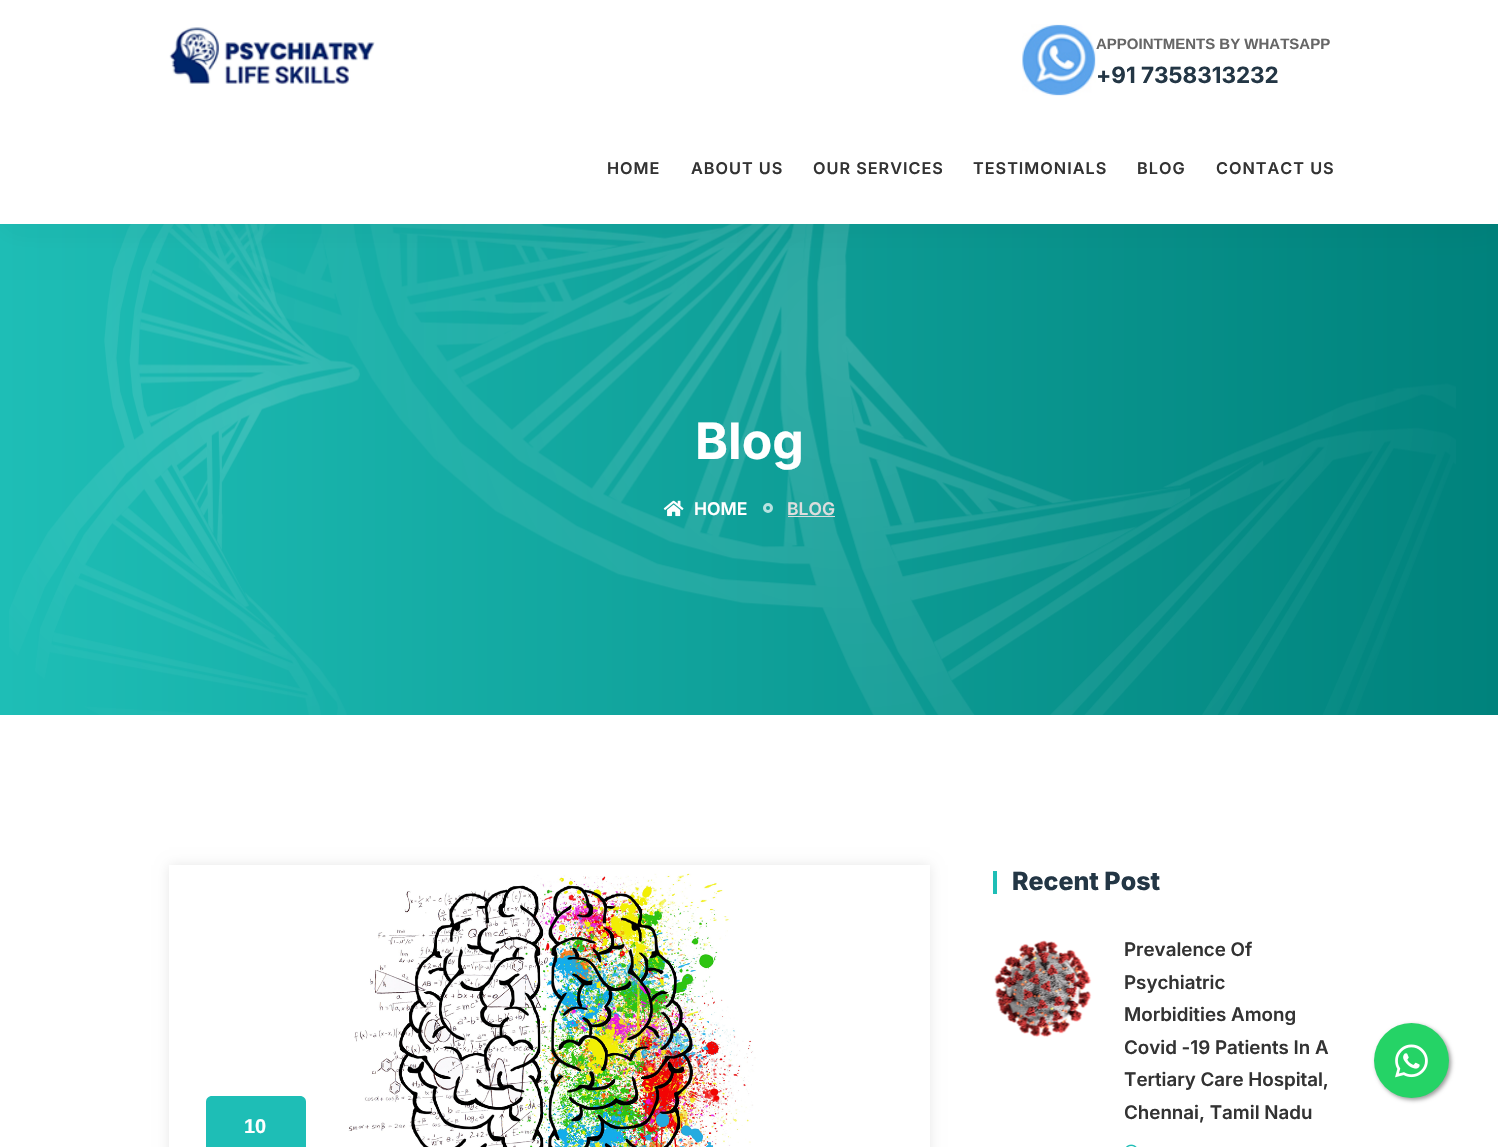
#include "include/core/SkBlurTypes.h"
#include "include/core/SkCanvas.h"
#include "include/core/SkData.h"
#include "include/core/SkFont.h"
#include "include/core/SkFontMgr.h"
#include "include/core/SkImage.h"
#include "include/core/SkMaskFilter.h"
#include "include/core/SkPaint.h"
#include "include/core/SkPathBuilder.h"
#include "include/core/SkTextBlob.h"
#include "include/effects/SkDashPathEffect.h"
#include "include/effects/SkGradientShader.h"
#include "include/utils/SkParsePath.h"

extern sk_sp<SkFontMgr> fontMgr;

static SkFont font(const char* family, int weight, float size, bool italic = false) {
    SkFontStyle style(weight, SkFontStyle::kNormal_Width,
        italic ? SkFontStyle::kItalic_Slant : SkFontStyle::kUpright_Slant);
    SkFont result(fontMgr->matchFamilyStyle(family, style), size);
    result.setSubpixel(true);
    return result;
}

static void drawLabel(SkCanvas* canvas, const char* s, float x, float y, const SkFont& font, SkColor color) {
    SkPaint ink(SkColor4f::FromColor(color));
    ink.setAntiAlias(true);
    canvas->drawString(s, x, y, font, ink);
}

static void drawTracked(SkCanvas* canvas, const char* s, float x, float y, const SkFont& font, const SkPaint& ink, float letter, float word) {
    std::vector<SkGlyphID> glyphs(font.countText(s, strlen(s), SkTextEncoding::kUTF8));
    std::vector<float> xs(glyphs.size());
    font.textToGlyphs(s, strlen(s), SkTextEncoding::kUTF8, glyphs);
    font.getXPos(glyphs, xs, x);
    float extra = 0;
    for (size_t i = 0; i < glyphs.size(); i++) {
        xs[i] += extra;
        extra += letter + word * (glyphs[i] == font.unicharToGlyph(' '));
    }
    canvas->drawTextBlob(SkTextBlob::MakeFromPosHGlyphs(glyphs, xs, y, font), 0, 0, ink);
}

static void fillRect(SkCanvas* canvas, float x, float y, float w, float h, SkColor color) {
    SkPaint ink(SkColor4f::FromColor(color));
    ink.setAntiAlias(true);
    canvas->drawRect(SkRect::MakeXYWH(x, y, w, h), ink);
}

static void drawPhoto(SkCanvas* canvas, const char* path, float x, float y, float w, float h) {
    auto image = SkImages::DeferredFromEncodedData(SkData::MakeFromFileName(path));
    canvas->drawImageRect(image, SkRect::MakeXYWH(x, y, w, h), SkSamplingOptions());
}

static SkPath parsePath(const char* data, bool evenOdd = false) {
    SkPath result = *SkParsePath::FromSVGString(data);
    if (evenOdd) result.setFillType(SkPathFillType::kEvenOdd);
    return result;
}

void draw(SkCanvas* canvas) {
    SkPaint paint;
    paint.setAntiAlias(true);
    canvas->clear(0xFFFFFFFF);
    {
        const SkColor colors[] = {0xFF1EBEB6, 0xFF00827C};
        const float stops[] = {0, 1};
        const SkPoint ends[] = {{0, 469}, {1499, 469}};
        paint.setShader(SkGradientShader::MakeLinear(ends, colors, stops, 2, SkTileMode::kClamp));
        paint.setAlpha(255);
    }
    canvas->drawRect(SkRect::MakeXYWH(0, 224, 1498, 491), paint);
    drawPhoto(canvas, "assets/img3.png", 9, 224, 1447, 491);
    paint.setShader(nullptr);
    paint.setColor(0x0A000000);
    paint.setMaskFilter(SkMaskFilter::MakeBlur(kNormal_SkBlurStyle, 15.5f));
    canvas->drawRect(SkRect::MakeXYWH(0, 10, 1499, 224), paint);
    paint.setMaskFilter(nullptr);
    fillRect(canvas, 0, 0, 1498, 224, 0xFFFFFFFF);
    drawPhoto(canvas, "assets/img1.png", 169, 27, 206, 58);
    drawPhoto(canvas, "assets/img2.png", 1022, 24, 74, 72);
    SkFont font1 = font("Liberation Sans", 700, 15);
    drawLabel(canvas, "APPOINTMENTS BY WHATSAPP", 1096, 49, font1, 0xFF666666);
    SkFont font2 = font("Inter", 700, 22.5f);
    drawLabel(canvas, "+91 7358313232", 1096, 83, font2, 0xFF233645);
    SkFont font3 = font("Inter", 600, 16.25f);
    paint.setColor(0xFF333333);
    drawTracked(canvas, "HOME", 607, 174, font3, paint, 1, 0);
    drawTracked(canvas, "ABOUT US", 691, 174, font3, paint, 1, 0);
    drawTracked(canvas, "OUR SERVICES", 813, 174, font3, paint, 1, 0);
    drawTracked(canvas, "TESTIMONIALS", 973, 174, font3, paint, 1, 0);
    drawTracked(canvas, "BLOG", 1137, 174, font3, paint, 1, 0);
    drawTracked(canvas, "CONTACT US", 1216, 174, font3, paint, 1, 0);
    SkFont font4 = font("Inter", 700, 50);
    drawLabel(canvas, "Blog", 695, 459, font4, 0xFFFFFFFF);
    drawPhoto(canvas, "assets/img4.png", 663, 500, 21, 17);
    SkFont font5 = font("Inter", 600, 17.5f);
    drawLabel(canvas, "HOME", 694, 515, font5, 0xFFFFFFFF);
    paint.setStroke(true);
    paint.setStrokeWidth(3);
    paint.setColor(0xFFB7E2E0);
    canvas->drawCircle(768, 508, 3.5f, paint);
    drawLabel(canvas, "BLOG", 787, 515, font5, 0xFFDDDDDD);
    fillRect(canvas, 788, 516, 47, 1, 0xFFDDDDDD);
    fillRect(canvas, 993, 871, 4, 23, 0xFF1EBEB6);
    SkFont font6 = font("Inter", 800, 25);
    drawLabel(canvas, "Recent Post", 1012, 890, font6, 0xFF233645);
    drawPhoto(canvas, "assets/img5.png", 994, 940, 98, 97);
    SkFont font7 = font("Inter", 600, 18.75f);
    drawLabel(canvas, "Prevalence Of", 1124, 956, font7, 0xFF333333);
    drawLabel(canvas, "Psychiatric", 1124, 989, font7, 0xFF333333);
    drawLabel(canvas, "Morbidities Among", 1124, 1021, font7, 0xFF333333);
    drawLabel(canvas, "Covid -19 Patients In A", 1124, 1054, font7, 0xFF333333);
    drawLabel(canvas, "Tertiary Care Hospital,", 1124, 1086, font7, 0xFF333333);
    drawLabel(canvas, "Chennai, Tamil Nadu", 1124, 1119, font7, 0xFF333333);
    drawPhoto(canvas, "assets/img6.png", 1126, 1144, 11, 3);
    canvas->save();
    canvas->clipPath(parsePath("M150 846H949V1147H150ZM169 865H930V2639H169Z", true), true);
    paint.setStroke(false);
    paint.setColor(0xFFE7E7E7);
    paint.setMaskFilter(SkMaskFilter::MakeBlur(kNormal_SkBlurStyle, 6));
    canvas->drawRect(SkRect::MakeXYWH(169, 865, 761, 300), paint);
    paint.setMaskFilter(nullptr);
    canvas->restore();
    paint.setColor(0xFF1EBEB6);
    canvas->drawPath(parsePath("M212 1096H300C303.5 1096 306 1098.5 306 1102V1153H212C208.5 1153 206 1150.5 206 1147V1102C206 1098.5 208.5 1096 212 1096Z"), paint);
    SkFont font8 = font("Liberation Sans", 700, 20);
    drawLabel(canvas, "10", 244, 1133, font8, 0xFFFFFFFF);
    drawPhoto(canvas, "assets/img7.png", 348, 873, 408, 274);
    paint.setColor(0xFF999999);
    paint.setMaskFilter(SkMaskFilter::MakeBlur(kNormal_SkBlurStyle, 2));
    canvas->drawRoundRect(SkRect::MakeXYWH(1376, 1025, 75, 75), 37.5f, 37.5f, paint);
    paint.setMaskFilter(nullptr);
    paint.setColor(0xFF25D366);
    canvas->drawCircle(1411.5f, 1060.5f, 37.5f, paint);
    drawPhoto(canvas, "assets/img8.png", 1395, 1044, 33, 34);
}
